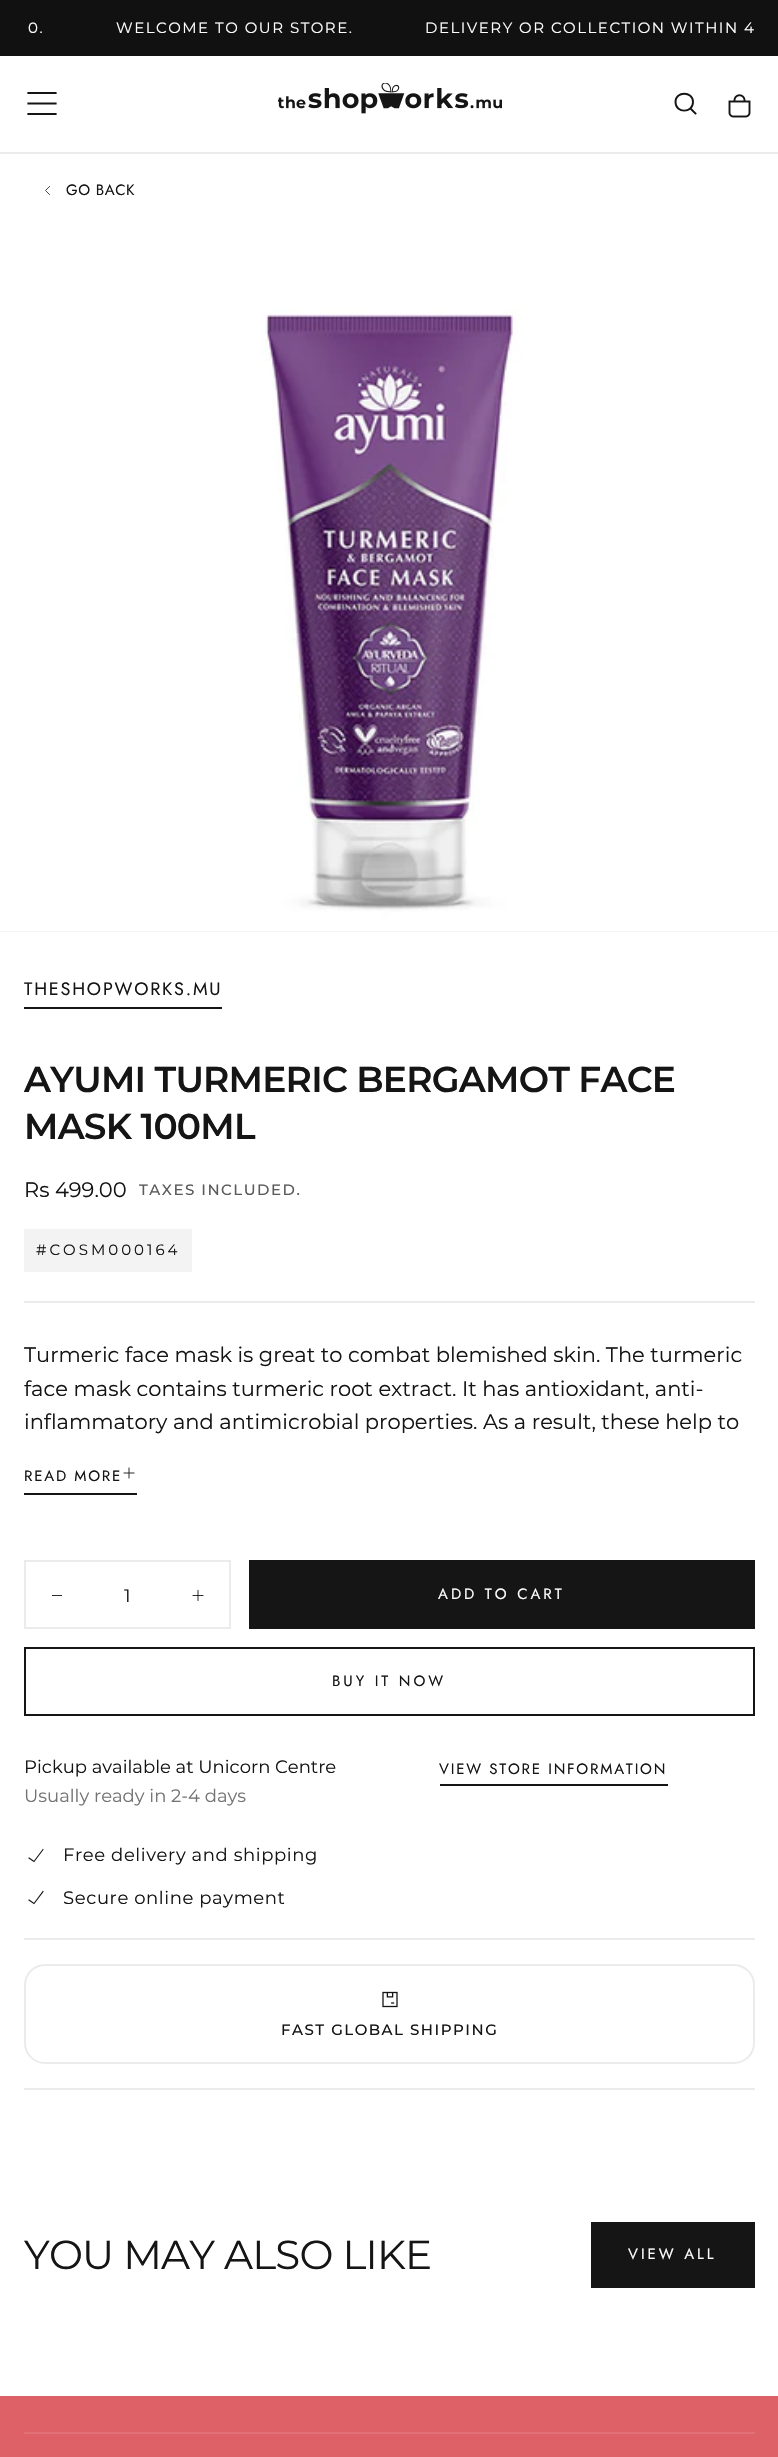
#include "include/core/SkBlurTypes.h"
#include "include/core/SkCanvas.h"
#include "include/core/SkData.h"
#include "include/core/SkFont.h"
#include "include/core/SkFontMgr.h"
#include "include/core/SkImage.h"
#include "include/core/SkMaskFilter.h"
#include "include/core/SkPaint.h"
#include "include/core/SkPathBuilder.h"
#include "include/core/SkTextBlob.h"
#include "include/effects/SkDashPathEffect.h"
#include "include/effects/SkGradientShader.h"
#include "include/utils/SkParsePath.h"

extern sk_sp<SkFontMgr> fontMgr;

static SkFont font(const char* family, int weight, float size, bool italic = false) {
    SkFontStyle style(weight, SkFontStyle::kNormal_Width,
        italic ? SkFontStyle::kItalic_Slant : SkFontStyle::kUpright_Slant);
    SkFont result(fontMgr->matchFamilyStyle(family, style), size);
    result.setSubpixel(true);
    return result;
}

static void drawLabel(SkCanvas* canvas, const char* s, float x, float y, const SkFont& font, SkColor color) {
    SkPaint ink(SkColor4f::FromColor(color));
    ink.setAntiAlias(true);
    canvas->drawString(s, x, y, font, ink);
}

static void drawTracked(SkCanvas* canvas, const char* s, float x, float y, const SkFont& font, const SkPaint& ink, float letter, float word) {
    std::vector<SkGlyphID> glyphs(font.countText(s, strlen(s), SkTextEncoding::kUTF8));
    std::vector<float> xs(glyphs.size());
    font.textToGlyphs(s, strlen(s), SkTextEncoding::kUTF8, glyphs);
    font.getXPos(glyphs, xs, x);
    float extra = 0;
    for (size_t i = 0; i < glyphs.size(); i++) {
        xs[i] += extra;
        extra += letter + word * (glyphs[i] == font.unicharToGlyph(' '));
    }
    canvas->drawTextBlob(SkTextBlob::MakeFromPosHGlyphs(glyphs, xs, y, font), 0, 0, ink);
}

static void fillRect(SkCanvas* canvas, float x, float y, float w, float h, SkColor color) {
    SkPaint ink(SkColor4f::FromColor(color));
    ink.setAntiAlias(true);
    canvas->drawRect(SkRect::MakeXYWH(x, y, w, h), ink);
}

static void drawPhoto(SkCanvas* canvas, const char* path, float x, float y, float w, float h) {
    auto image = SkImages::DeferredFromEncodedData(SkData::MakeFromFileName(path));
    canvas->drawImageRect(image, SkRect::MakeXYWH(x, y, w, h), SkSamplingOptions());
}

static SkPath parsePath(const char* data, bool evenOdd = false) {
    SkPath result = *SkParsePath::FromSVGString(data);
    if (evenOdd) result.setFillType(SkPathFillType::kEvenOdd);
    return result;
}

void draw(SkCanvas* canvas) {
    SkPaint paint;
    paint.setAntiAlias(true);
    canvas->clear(0xFFFFFFFF);
    fillRect(canvas, 0, 0, 778, 56, 0xFF111111);
    SkFont font1 = font("Montserrat", 400, 15);
    paint.setColor(0xFFFFFFFF);
    drawTracked(canvas, "0.", 28, 33, font1, paint, 1.5f, 0);
    drawTracked(canvas, "WELCOME TO OUR STORE.", 116, 33, font1, paint, 1.5f, 0);
    drawTracked(canvas, "DELIVERY OR COLLECTION WITHIN 4", 425, 33, font1, paint, 1.5f, 0);
    fillRect(canvas, 0, 152, 778, 2, 0xFFEBEBEB);
    paint.setStroke(true);
    paint.setStrokeWidth(2.2f);
    paint.setStrokeCap(SkPaint::kSquare_Cap);
    paint.setColor(0xFF151515);
    canvas->drawPath(parsePath("M28.5 103.5H55.5M28.5 93H55.5M28.5 114H55.5"), paint);
    drawPhoto(canvas, "assets/img1.png", 278, 83, 224, 31);
    paint.setStrokeWidth(1.9f);
    canvas->drawPath(parsePath("M695.5 113.5L690.5 108.5M693 102C693 113.5 675.5 113.5 675.5 102C675.5 91 693 91 693 102Z"), paint);
    drawPhoto(canvas, "assets/img2.png", 728, 94, 23, 24);
    drawPhoto(canvas, "assets/img3.png", 0, 154, 778, 777);
    paint.setStrokeWidth(0.8f);
    canvas->drawPath(parsePath("M49.5 194.5L45.5 190.5L49.5 186.5"), paint);
    SkFont font2 = font("Jost", 400, 15);
    paint.setStroke(false);
    drawTracked(canvas, "GO BACK", 66, 195, font2, paint, 0.6f, 0);
    fillRect(canvas, 0, 931, 778, 1, 0xFFF4F4F4);
    SkFont font3 = font("Jost", 400, 18);
    drawTracked(canvas, "THESHOPWORKS.MU", 24, 995, font3, paint, 1.8f, 0);
    fillRect(canvas, 24, 1007, 198, 2, 0xFF151515);
    SkFont font4 = font("Montserrat", 600, 36);
    drawTracked(canvas, "AYUMI TURMERIC BERGAMOT FACE", 24, 1092, font4, paint, -0.75f, 0);
    drawTracked(canvas, "MASK 100ML", 24, 1139, font4, paint, -0.75f, 0);
    SkFont font5 = font("Montserrat", 400, 21);
    drawLabel(canvas, "Rs 499.00", 24, 1197, font5, 0xFF151515);
    SkFont font6 = font("Montserrat", 500, 15);
    paint.setColor(0xFF5B5B5B);
    drawTracked(canvas, "TAXES INCLUDED.", 139, 1195, font6, paint, 1.5f, 0);
    fillRect(canvas, 24, 1229, 168, 43, 0xFFF3F3F3);
    paint.setColor(0xFF151515);
    drawTracked(canvas, "#COSM000164", 36, 1255, font1, paint, 3, 0);
    fillRect(canvas, 24, 1301, 731, 2, 0xFFEBEBEB);
    drawLabel(canvas, "Turmeric face mask is great to combat blemished skin. The turmeric", 24, 1362, font5, 0xFF151515);
    drawLabel(canvas, "face mask contains turmeric root extract. It has antioxidant, anti-", 24, 1396, font5, 0xFF151515);
    drawLabel(canvas, "inflammatory and antimicrobial properties. As a result, these help to", 24, 1429, font5, 0xFF151515);
    drawTracked(canvas, "READ MORE", 24, 1481, font2, paint, 1.8f, 0);
    drawPhoto(canvas, "assets/img4.png", 123, 1467, 12, 12);
    fillRect(canvas, 24, 1493, 113, 2, 0xFF151515);
    paint.setStroke(true);
    paint.setStrokeWidth(2);
    paint.setStrokeCap(SkPaint::kButt_Cap);
    paint.setColor(0xFFEBEBEB);
    canvas->drawRect(SkRect::MakeXYWH(25, 1561, 205, 67), paint);
    fillRect(canvas, 52, 1595, 10, 1, 0xFF2C2C2C);
    SkFont font7 = font("Montserrat", 400, 18);
    drawLabel(canvas, "1", 124, 1602, font7, 0xFF151515);
    drawPhoto(canvas, "assets/img5.png", 192, 1590, 12, 11);
    fillRect(canvas, 249, 1560, 506, 69, 0xFF151515);
    paint.setStroke(false);
    paint.setColor(0xFFFFFFFF);
    drawTracked(canvas, "ADD TO CART", 438, 1599, font2, paint, 3, 0);
    paint.setStroke(true);
    paint.setColor(0xFF151515);
    canvas->drawRect(SkRect::MakeXYWH(25, 1648, 729, 67), paint);
    paint.setStroke(false);
    drawTracked(canvas, "BUY IT NOW", 332, 1686, font2, paint, 3, 0);
    drawLabel(canvas, "Pickup available at Unicorn Centre", 24, 1773, font7, 0xFF151515);
    drawTracked(canvas, "VIEW STORE INFORMATION", 439, 1774, font2, paint, 1.8f, 0);
    fillRect(canvas, 440, 1784, 228, 2, 0xFF151515);
    drawLabel(canvas, "Usually ready in 2-4 days", 24, 1802, font7, 0xFF737373);
    paint.setStroke(true);
    paint.setStrokeWidth(1.1f);
    paint.setStrokeCap(SkPaint::kSquare_Cap);
    canvas->drawPath(parsePath("M29 1858L34 1861.5L43 1849.5M29 1900L34 1903.5L43 1891.5"), paint);
    paint.setStroke(false);
    drawTracked(canvas, "Free delivery and shipping", 63, 1861, font7, paint, 0.6f, 0);
    drawTracked(canvas, "Secure online payment", 63, 1904, font7, paint, 0.6f, 0);
    fillRect(canvas, 24, 1938, 731, 2, 0xFFEBEBEB);
    paint.setStroke(true);
    paint.setStrokeWidth(2);
    paint.setStrokeCap(SkPaint::kButt_Cap);
    paint.setColor(0xFFEBEBEB);
    canvas->drawRoundRect(SkRect::MakeXYWH(25, 1965, 729, 98), 20, 20, paint);
    drawPhoto(canvas, "assets/img6.png", 382, 1991, 16, 17);
    paint.setStroke(false);
    paint.setColor(0xFF151515);
    drawTracked(canvas, "FAST GLOBAL SHIPPING", 281, 2035, font6, paint, 1.5f, 0);
    fillRect(canvas, 24, 2088, 731, 2, 0xFFEBEBEB);
    SkFont font8 = font("Montserrat", 400, 40.5f);
    drawTracked(canvas, "YOU MAY ALSO LIKE", 24, 2269, font8, paint, -0.8f, 0);
    fillRect(canvas, 591, 2222, 164, 66, 0xFF151515);
    paint.setColor(0xFFFFFFFF);
    drawTracked(canvas, "VIEW ALL", 628, 2259, font2, paint, 3, 0);
    fillRect(canvas, 0, 2396, 778, 61, 0xFFDE6168);
    fillRect(canvas, 24, 2432, 731, 2, 0xFFE17177);
}
